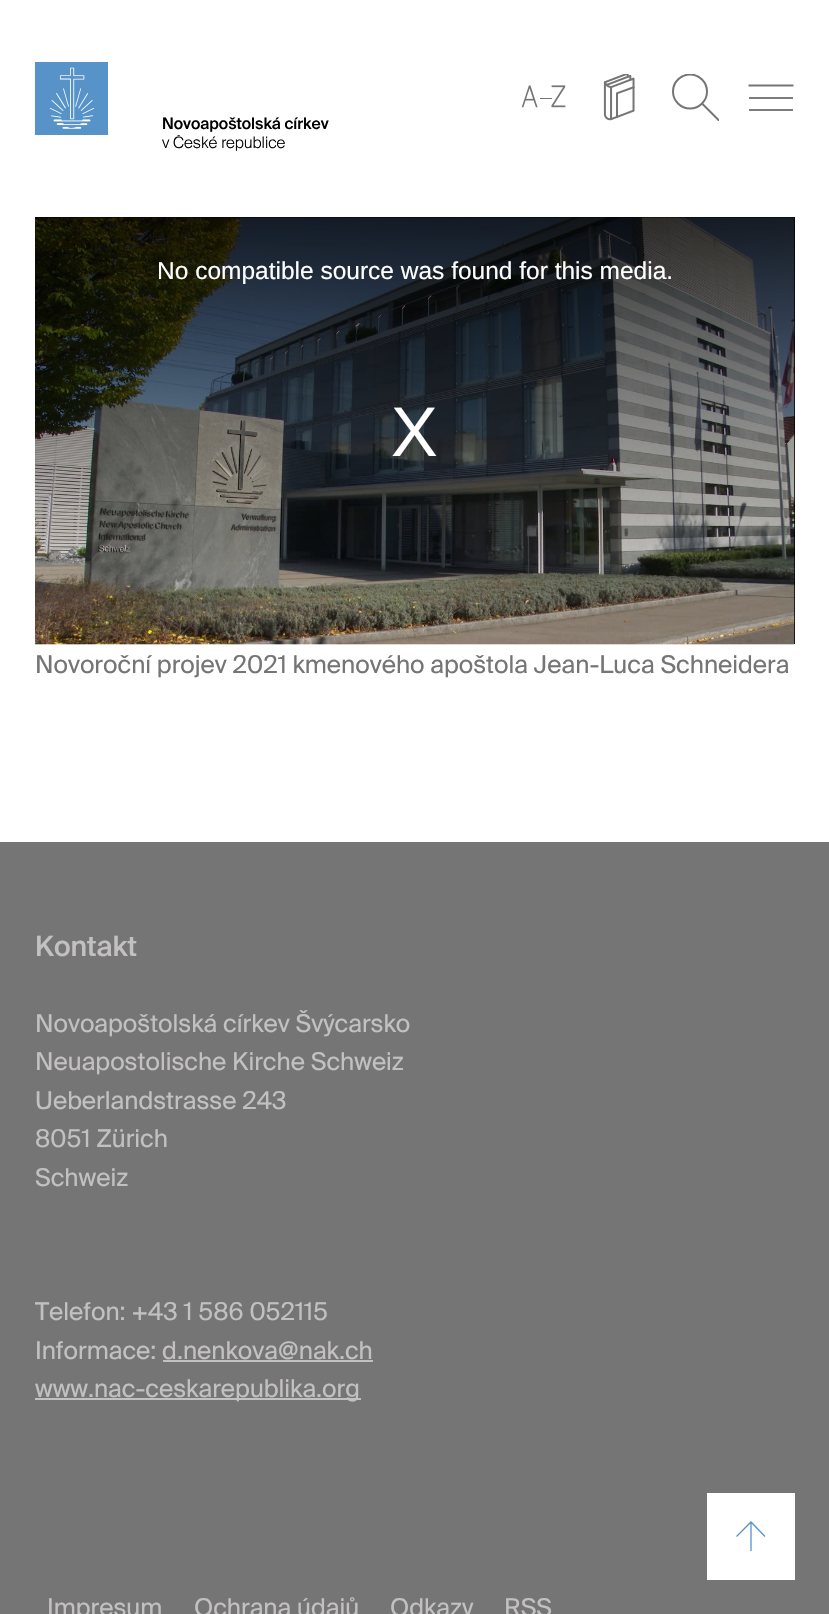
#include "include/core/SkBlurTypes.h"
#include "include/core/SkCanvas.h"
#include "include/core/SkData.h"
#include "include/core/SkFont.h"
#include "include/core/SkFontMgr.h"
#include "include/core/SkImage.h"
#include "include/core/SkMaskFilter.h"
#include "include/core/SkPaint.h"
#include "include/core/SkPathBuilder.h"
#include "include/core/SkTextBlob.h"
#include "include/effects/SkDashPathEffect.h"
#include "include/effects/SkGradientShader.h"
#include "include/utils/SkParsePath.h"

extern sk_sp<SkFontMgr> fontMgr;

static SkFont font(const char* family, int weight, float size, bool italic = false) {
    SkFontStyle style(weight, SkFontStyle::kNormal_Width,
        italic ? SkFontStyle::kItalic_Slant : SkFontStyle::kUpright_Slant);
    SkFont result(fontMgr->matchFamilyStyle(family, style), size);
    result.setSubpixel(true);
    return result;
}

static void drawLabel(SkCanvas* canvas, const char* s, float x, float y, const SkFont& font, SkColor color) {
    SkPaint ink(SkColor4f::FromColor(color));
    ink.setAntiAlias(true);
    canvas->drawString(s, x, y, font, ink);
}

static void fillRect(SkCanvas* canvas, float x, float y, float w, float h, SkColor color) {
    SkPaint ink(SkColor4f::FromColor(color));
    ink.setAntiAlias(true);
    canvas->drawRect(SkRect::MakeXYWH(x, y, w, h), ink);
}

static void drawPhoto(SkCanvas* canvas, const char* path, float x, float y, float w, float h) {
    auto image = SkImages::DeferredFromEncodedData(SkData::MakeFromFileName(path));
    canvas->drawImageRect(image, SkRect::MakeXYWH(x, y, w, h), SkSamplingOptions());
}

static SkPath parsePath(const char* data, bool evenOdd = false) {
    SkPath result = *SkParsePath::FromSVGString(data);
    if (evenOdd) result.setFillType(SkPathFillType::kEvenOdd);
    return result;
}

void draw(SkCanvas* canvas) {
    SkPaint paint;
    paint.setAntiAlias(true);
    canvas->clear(0xFFFFFFFF);
    drawPhoto(canvas, "assets/img1.png", 35, 62, 73, 73);
    drawPhoto(canvas, "assets/img2.png", 521, 85, 45, 23);
    drawPhoto(canvas, "assets/img3.png", 603, 74, 32, 47);
    canvas->save();
    canvas->clipRect(SkRect::MakeXYWH(672, 74, 47, 47));
    paint.setStroke(true);
    paint.setStrokeWidth(2);
    paint.setColor(0xFF757576);
    canvas->drawCircle(690, 91.5f, 17, paint);
    paint.setStrokeCap(SkPaint::kSquare_Cap);
    canvas->drawPath(parsePath("M702.5 104L718.5 120"), paint);
    canvas->restore();
    paint.setStrokeWidth(1.9f);
    canvas->drawPath(parsePath("M749.5 85.5H792.5"), paint);
    fillRect(canvas, 749, 97, 44, 2, 0xFF7C7C7D);
    fillRect(canvas, 749, 109, 44, 2, 0xFF7C7C7D);
    SkFont font1 = font("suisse", 500, 15.75f);
    drawLabel(canvas, "Novoapoštolská církev", 162, 129, font1, 0xFF000000);
    canvas->save();
    canvas->clipRect(SkRect::MakeXYWH(161, 135, 168, 17));
    SkFont font2 = font("suisse", 300, 15.75f);
    drawLabel(canvas, "v České republice", 162, 148, font2, 0xFF000000);
    canvas->restore();
    fillRect(canvas, 35, 217, 760, 427, 0xFF000000);
    drawPhoto(canvas, "assets/img5.png", 35, 644, 759, 1);
    drawPhoto(canvas, "assets/img4.png", 35, 217, 760, 428);
    paint.setStroke(false);
    {
        const SkColor colors[] = {0xCC000000, 0x00000000};
        const float stops[] = {0, 1};
        const SkPoint ends[] = {{415, 217}, {415, 644}};
        paint.setShader(SkGradientShader::MakeLinear(ends, colors, stops, 2, SkTileMode::kClamp));
        paint.setAlpha(255);
    }
    canvas->drawRect(SkRect::MakeXYWH(35, 217, 760, 415), paint);
    SkFont font3 = font("Liberation Sans", 400, 24.5f);
    drawLabel(canvas, "No compatible source was found for this media.", 157, 279, font3, 0xFFFFFFFF);
    SkFont font4 = font("Liberation Sans", 400, 70);
    drawLabel(canvas, "X", 391, 456, font4, 0xFFFFFFFF);
    SkFont font5 = font("suisse", 400, 24.5f);
    drawLabel(canvas, "Novoroční projev 2021 kmenového apoštola Jean-Luca Schneidera", 35, 673, font5, 0xFF757576);
    fillRect(canvas, 0, 842, 829, 772, 0xFF757576);
    SkFont font6 = font("suisse", 500, 28);
    drawLabel(canvas, "Kontakt", 35, 956, font6, 0xFFC2C0C0);
    drawLabel(canvas, "Novoapoštolská církev Švýcarsko", 35, 1032, font5, 0xFFC2C0C0);
    drawLabel(canvas, "Neuapostolische Kirche Schweiz", 35, 1070, font5, 0xFFC2C0C0);
    drawLabel(canvas, "Ueberlandstrasse 243", 35, 1109, font5, 0xFFC2C0C0);
    drawLabel(canvas, "8051 Zürich", 35, 1147, font5, 0xFFC2C0C0);
    drawLabel(canvas, "Schweiz", 35, 1186, font5, 0xFFC2C0C0);
    drawLabel(canvas, "Telefon: +43 1 586 052115", 35, 1320, font5, 0xFFC2C0C0);
    drawLabel(canvas, "Informace: d.nenkova@nak.ch", 35, 1359, font5, 0xFFC2C0C0);
    fillRect(canvas, 163, 1360, 210, 2, 0xFFC2C0C0);
    fillRect(canvas, 35, 1398, 326, 2, 0xFFC2C0C0);
    drawLabel(canvas, "www.nac-ceskarepublika.org", 35, 1397, font5, 0xFFC2C0C0);
    drawLabel(canvas, "Impresum", 47, 1616, font5, 0xFFC2C0C0);
    drawLabel(canvas, "Ochrana údajů", 194, 1616, font5, 0xFFC2C0C0);
    drawLabel(canvas, "Odkazy", 390, 1616, font5, 0xFFC2C0C0);
    drawLabel(canvas, "RSS", 504, 1616, font5, 0xFFC2C0C0);
    fillRect(canvas, 707, 1493, 88, 87, 0xFFFFFFFF);
    paint.setStroke(true);
    paint.setStrokeWidth(1.3f);
    paint.setStrokeCap(SkPaint::kButt_Cap);
    paint.setShader(nullptr);
    paint.setColor(0xFF5793C9);
    canvas->drawPath(parsePath("M751 1551V1522M736.5 1536.5L751 1522L765 1536.5"), paint);
}
